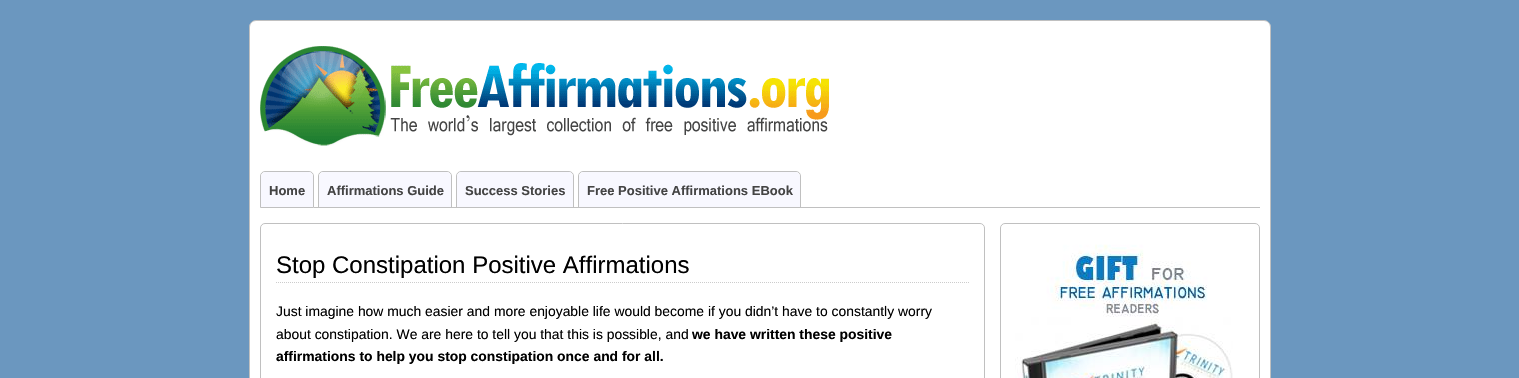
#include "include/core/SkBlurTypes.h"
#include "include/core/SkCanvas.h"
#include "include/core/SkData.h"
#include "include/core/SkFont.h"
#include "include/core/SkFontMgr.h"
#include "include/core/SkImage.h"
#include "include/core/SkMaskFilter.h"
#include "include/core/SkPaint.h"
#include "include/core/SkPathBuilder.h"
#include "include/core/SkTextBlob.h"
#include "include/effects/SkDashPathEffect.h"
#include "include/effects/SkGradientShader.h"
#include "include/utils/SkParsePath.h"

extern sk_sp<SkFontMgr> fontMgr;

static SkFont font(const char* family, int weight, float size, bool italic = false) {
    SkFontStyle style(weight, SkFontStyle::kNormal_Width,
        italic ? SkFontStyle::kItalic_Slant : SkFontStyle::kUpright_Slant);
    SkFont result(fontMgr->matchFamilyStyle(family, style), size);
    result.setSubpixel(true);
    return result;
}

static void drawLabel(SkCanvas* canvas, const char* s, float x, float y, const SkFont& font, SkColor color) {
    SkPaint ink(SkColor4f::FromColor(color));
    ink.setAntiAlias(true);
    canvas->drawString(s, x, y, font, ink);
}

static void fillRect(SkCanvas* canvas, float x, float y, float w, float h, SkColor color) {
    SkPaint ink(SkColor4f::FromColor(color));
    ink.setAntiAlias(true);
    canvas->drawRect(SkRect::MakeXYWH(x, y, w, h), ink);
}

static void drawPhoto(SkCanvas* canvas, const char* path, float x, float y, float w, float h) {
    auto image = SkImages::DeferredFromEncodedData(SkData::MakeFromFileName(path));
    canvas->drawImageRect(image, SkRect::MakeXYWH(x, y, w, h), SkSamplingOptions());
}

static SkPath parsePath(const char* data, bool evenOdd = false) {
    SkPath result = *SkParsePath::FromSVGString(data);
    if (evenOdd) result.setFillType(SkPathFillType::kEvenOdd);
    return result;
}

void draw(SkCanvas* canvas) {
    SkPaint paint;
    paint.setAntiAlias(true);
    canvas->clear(0xFF6B97BF);
    paint.setColor(0xFFFFFFFF);
    canvas->drawRoundRect(SkRect::MakeXYWH(249.5f, 20.5f, 1021, 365), 6.5f, 6.5f, paint);
    paint.setStroke(true);
    paint.setStrokeWidth(1);
    paint.setColor(0xFFC0C0C0);
    canvas->drawRoundRect(SkRect::MakeXYWH(249.5f, 20.5f, 1021, 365), 6.5f, 6.5f, paint);
    drawPhoto(canvas, "assets/img1.png", 260, 46, 569, 100);
    fillRect(canvas, 314, 207, 946, 1, 0xFFC0C0C0);
    canvas->drawPath(parsePath("M265 171.5H309C311.5 171.5 313.5 173.5 313.5 176V207.5H260.5V176C260.5 173.5 262.5 171.5 265 171.5Z"), paint);
    paint.setStroke(false);
    paint.setColor(0xFFF8F8FF);
    canvas->drawPath(parsePath("M266 172H308C311 172 313 174 313 177V207H261V177C261 174 263 172 266 172Z"), paint);
    SkFont font1 = font("Liberation Sans", 700, 13);
    drawLabel(canvas, "Home", 269, 195, font1, 0xFF444444);
    paint.setStroke(true);
    paint.setColor(0xFFC0C0C0);
    canvas->drawPath(parsePath("M323 171.5H447C449.5 171.5 451.5 173.5 451.5 176V207.5H318.5V176C318.5 173.5 320.5 171.5 323 171.5Z"), paint);
    paint.setStroke(false);
    paint.setColor(0xFFF8F8FF);
    canvas->drawPath(parsePath("M324 172H446C449 172 451 174 451 177V207H319V177C319 174 321 172 324 172Z"), paint);
    drawLabel(canvas, "Affirmations Guide", 327, 195, font1, 0xFF444444);
    paint.setStroke(true);
    paint.setColor(0xFFC0C0C0);
    canvas->drawPath(parsePath("M461 171.5H569C571.5 171.5 573.5 173.5 573.5 176V207.5H456.5V176C456.5 173.5 458.5 171.5 461 171.5Z"), paint);
    paint.setStroke(false);
    paint.setColor(0xFFF8F8FF);
    canvas->drawPath(parsePath("M462 172H568C571 172 573 174 573 177V207H457V177C457 174 459 172 462 172Z"), paint);
    drawLabel(canvas, "Success Stories", 465, 195, font1, 0xFF444444);
    paint.setStroke(true);
    paint.setColor(0xFFC0C0C0);
    canvas->drawPath(parsePath("M583 171.5H796C798.5 171.5 800.5 173.5 800.5 176V207.5H578.5V176C578.5 173.5 580.5 171.5 583 171.5Z"), paint);
    paint.setStroke(false);
    paint.setColor(0xFFF8F8FF);
    canvas->drawPath(parsePath("M584 172H795C798 172 800 174 800 177V207H579V177C579 174 581 172 584 172Z"), paint);
    drawLabel(canvas, "Free Positive Affirmations EBook", 587, 195, font1, 0xFF444444);
    paint.setStroke(true);
    paint.setColor(0xFFC0C0C0);
    canvas->drawRoundRect(SkRect::MakeXYWH(260.5f, 223.5f, 724, 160), 4.5f, 4.5f, paint);
    paint.setColor(0xFFCCCCCC);
    paint.setPathEffect(SkDashPathEffect::Make({{1, 1}}, 0));
    canvas->drawPath(parsePath("M276 282.5H969"), paint);
    paint.setPathEffect(nullptr);
    SkFont font2 = font("Liberation Sans", 400, 24);
    drawLabel(canvas, "Stop Constipation Positive Affirmations", 276, 273, font2, 0xFF000000);
    SkFont font3 = font("Liberation Sans", 400, 13.9f);
    drawLabel(canvas, "Just imagine how much easier and more enjoyable life would become if you didn’t have to constantly worry", 276, 316, font3, 0xFF000000);
    drawLabel(canvas, "about constipation. We are here to tell you that this is possible, and", 276, 339, font3, 0xFF000000);
    SkFont font4 = font("Liberation Sans", 700, 13.9f);
    drawLabel(canvas, "we have written these positive", 692, 339, font4, 0xFF000000);
    drawLabel(canvas, "affirmations to help you stop constipation once and for all.", 276, 361, font4, 0xFF000000);
    paint.setColor(0xFFC0C0C0);
    canvas->drawRoundRect(SkRect::MakeXYWH(1000.5f, 223.5f, 259, 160), 4.5f, 4.5f, paint);
    drawPhoto(canvas, "assets/img2.png", 1015, 244, 218, 134);
}
